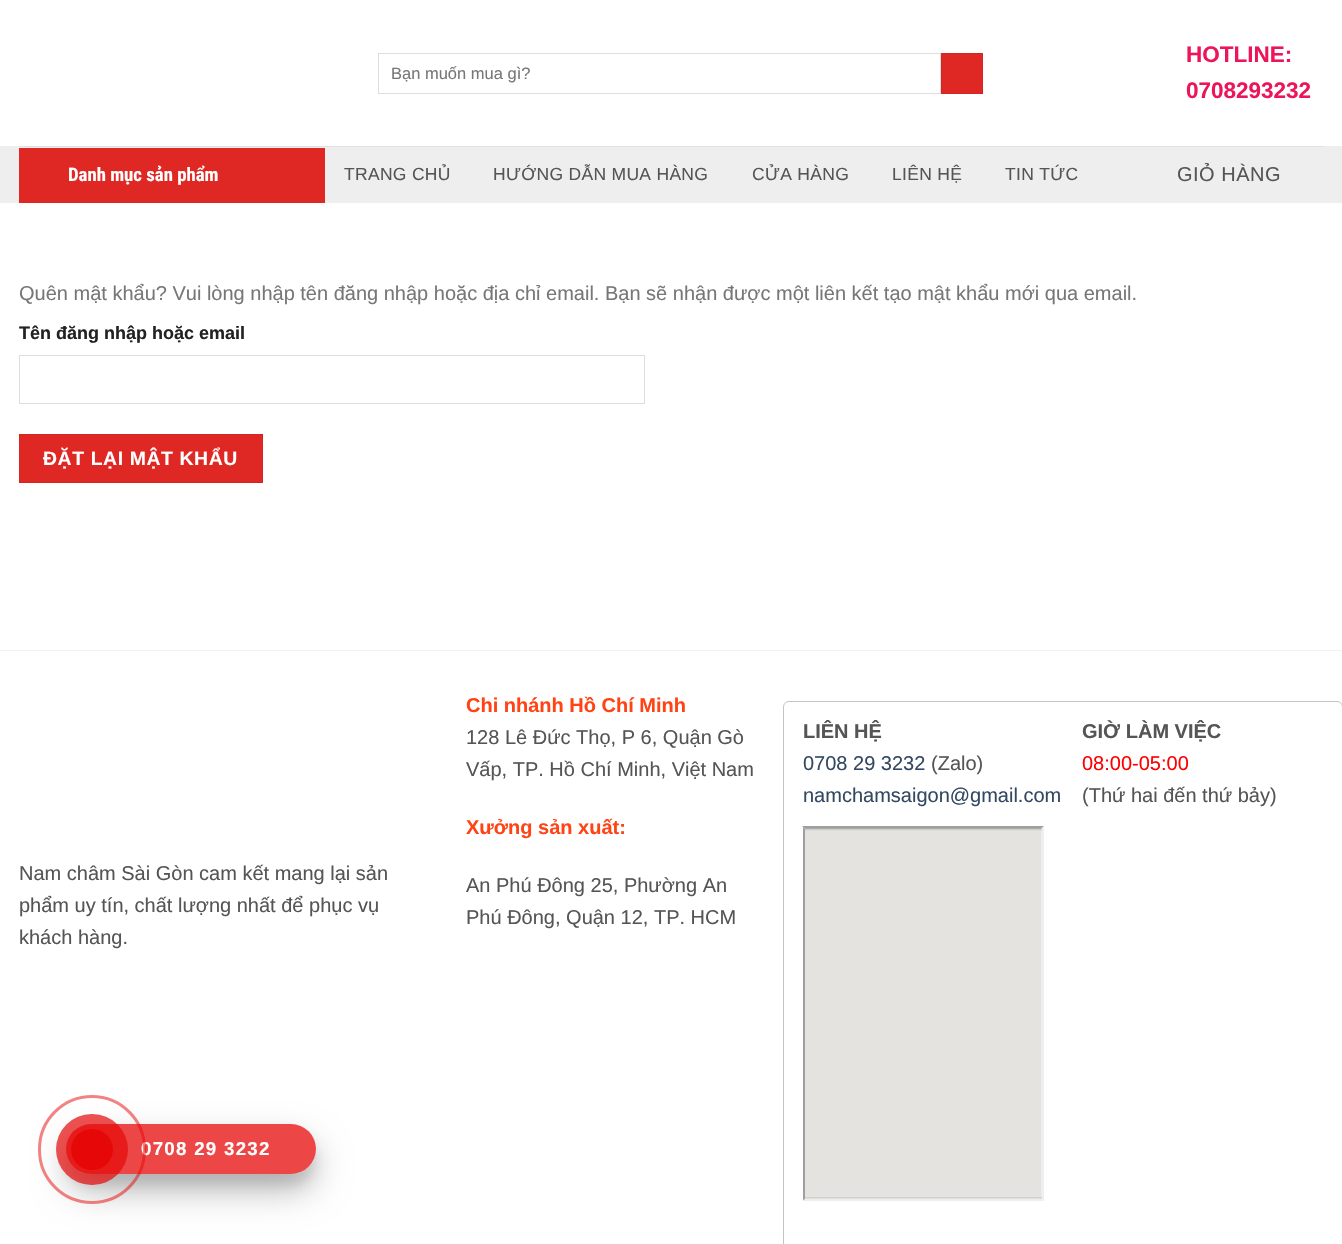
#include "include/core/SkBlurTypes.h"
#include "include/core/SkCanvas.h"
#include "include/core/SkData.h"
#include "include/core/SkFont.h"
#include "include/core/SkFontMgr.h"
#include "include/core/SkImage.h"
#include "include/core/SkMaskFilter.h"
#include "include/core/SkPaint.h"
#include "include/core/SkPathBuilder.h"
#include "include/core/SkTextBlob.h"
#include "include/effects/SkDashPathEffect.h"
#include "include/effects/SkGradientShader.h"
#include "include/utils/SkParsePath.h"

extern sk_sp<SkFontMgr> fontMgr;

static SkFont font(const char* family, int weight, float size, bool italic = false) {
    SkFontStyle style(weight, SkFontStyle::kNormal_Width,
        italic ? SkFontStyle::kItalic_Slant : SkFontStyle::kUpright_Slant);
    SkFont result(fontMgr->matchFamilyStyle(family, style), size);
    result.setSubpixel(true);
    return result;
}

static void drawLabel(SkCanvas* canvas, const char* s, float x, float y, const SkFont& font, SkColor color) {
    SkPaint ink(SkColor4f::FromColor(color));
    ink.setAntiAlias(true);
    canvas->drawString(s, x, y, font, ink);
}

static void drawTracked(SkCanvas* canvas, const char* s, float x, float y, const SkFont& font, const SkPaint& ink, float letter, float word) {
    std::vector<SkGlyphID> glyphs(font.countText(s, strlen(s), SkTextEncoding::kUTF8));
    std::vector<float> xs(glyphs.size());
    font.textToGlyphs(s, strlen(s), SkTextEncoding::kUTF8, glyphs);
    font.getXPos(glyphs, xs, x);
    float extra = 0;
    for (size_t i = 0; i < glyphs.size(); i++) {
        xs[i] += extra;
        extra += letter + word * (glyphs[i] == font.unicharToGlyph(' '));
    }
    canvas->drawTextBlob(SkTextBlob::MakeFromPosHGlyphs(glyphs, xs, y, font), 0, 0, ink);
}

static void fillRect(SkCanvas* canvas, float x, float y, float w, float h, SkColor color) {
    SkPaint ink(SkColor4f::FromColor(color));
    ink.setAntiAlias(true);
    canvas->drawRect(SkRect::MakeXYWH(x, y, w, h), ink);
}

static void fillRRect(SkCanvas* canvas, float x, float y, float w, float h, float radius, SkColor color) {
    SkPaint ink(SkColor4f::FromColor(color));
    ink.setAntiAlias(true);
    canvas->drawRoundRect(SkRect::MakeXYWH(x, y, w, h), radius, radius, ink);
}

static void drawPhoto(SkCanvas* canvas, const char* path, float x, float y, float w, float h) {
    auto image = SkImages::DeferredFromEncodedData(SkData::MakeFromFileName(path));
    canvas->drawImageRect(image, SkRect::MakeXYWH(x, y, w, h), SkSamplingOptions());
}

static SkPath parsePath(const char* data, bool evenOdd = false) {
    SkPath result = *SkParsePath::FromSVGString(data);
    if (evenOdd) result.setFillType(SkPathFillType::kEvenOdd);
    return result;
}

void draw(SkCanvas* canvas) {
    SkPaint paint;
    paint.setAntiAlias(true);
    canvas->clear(0xFFFFFFFF);
    paint.setStroke(true);
    paint.setStrokeWidth(1);
    paint.setColor(0xFFDDDDDD);
    canvas->drawRect(SkRect::MakeXYWH(378.5f, 53.5f, 562, 40), paint);
    SkFont font1 = font("Liberation Sans", 400, 16.5f);
    drawLabel(canvas, "Bạn muốn mua gì?", 391, 79, font1, 0xFF777777);
    paint.setStroke(false);
    paint.setColor(0xFFDF2824);
    canvas->drawRect(SkRect::MakeXYWH(941.5f, 53.5f, 41, 40), paint);
    paint.setStroke(true);
    paint.setColor(0xFFD42622);
    canvas->drawRect(SkRect::MakeXYWH(941.5f, 53.5f, 41, 40), paint);
    SkFont font2 = font("Liberation Sans", 700, 22.5f);
    drawLabel(canvas, "HOTLINE:", 1186, 62, font2, 0xFFED145B);
    drawLabel(canvas, "0708293232", 1186, 98, font2, 0xFFED145B);
    fillRect(canvas, 0, 146, 1342, 57, 0xFFEEEEEE);
    fillRect(canvas, 19, 146, 1305, 1, 0xFFE2E2E2);
    fillRect(canvas, 19, 148, 306, 55, 0xFFDF2824);
    SkFont font3 = font("Roboto Condensed", 700, 18.75f);
    drawLabel(canvas, "Danh mục sản phẩm", 68, 181, font3, 0xFFFFFFFF);
    SkFont font4 = font("Liberation Sans", 400, 17.5f);
    paint.setStroke(false);
    paint.setColor(0xFF555555);
    drawTracked(canvas, "TRANG CHỦ", 344, 180, font4, paint, 0.3f, 0);
    drawTracked(canvas, "HƯỚNG DẪN MUA HÀNG", 493, 180, font4, paint, 0.3f, 0);
    drawTracked(canvas, "CỬA HÀNG", 752, 180, font4, paint, 0.3f, 0);
    drawTracked(canvas, "LIÊN HỆ", 892, 180, font4, paint, 0.3f, 0);
    drawTracked(canvas, "TIN TỨC", 1005, 180, font4, paint, 0.3f, 0);
    SkFont font5 = font("Liberation Sans", 400, 20);
    drawTracked(canvas, "GIỎ HÀNG", 1177, 181, font5, paint, 0.5f, 0);
    drawLabel(canvas, "Quên mật khẩu? Vui lòng nhập tên đăng nhập hoặc địa chỉ email. Bạn sẽ nhận được một liên kết tạo mật khẩu mới qua email.", 19, 300, font5, 0xFF777777);
    SkFont font6 = font("Liberation Sans", 700, 18);
    drawLabel(canvas, "Tên đăng nhập hoặc email", 19, 339, font6, 0xFF222222);
    paint.setStroke(true);
    paint.setColor(0xFFDDDDDD);
    canvas->drawRect(SkRect::MakeXYWH(19.5f, 355.5f, 625, 48), paint);
    paint.setStroke(false);
    paint.setColor(0xFFDF2824);
    canvas->drawRect(SkRect::MakeXYWH(19.5f, 434.5f, 243, 48), paint);
    paint.setStroke(true);
    paint.setColor(0xFFD42622);
    canvas->drawRect(SkRect::MakeXYWH(19.5f, 434.5f, 243, 48), paint);
    SkFont font7 = font("Liberation Sans", 700, 19.4f);
    paint.setStroke(false);
    paint.setColor(0xFFFFFFFF);
    drawTracked(canvas, "ĐẶT LẠI MẬT KHẨU", 43, 465, font7, paint, 0.6f, 0);
    fillRect(canvas, 0, 650, 1342, 1, 0xFFF2F2F2);
    SkFont font8 = font("Liberation Sans", 700, 20);
    drawLabel(canvas, "Chi nhánh Hồ Chí Minh", 466, 712, font8, 0xFFFF4315);
    drawLabel(canvas, "128 Lê Đức Thọ, P 6, Quận Gò", 466, 744, font5, 0xFF555555);
    drawLabel(canvas, "Vấp, TP. Hồ Chí Minh, Việt Nam", 466, 776, font5, 0xFF555555);
    drawLabel(canvas, "Xưởng sản xuất:", 466, 834, font8, 0xFFFF4315);
    drawLabel(canvas, "An Phú Đông 25, Phường An", 466, 892, font5, 0xFF555555);
    drawLabel(canvas, "Phú Đông, Quận 12, TP. HCM", 466, 924, font5, 0xFF555555);
    paint.setStroke(true);
    paint.setColor(0xFFC4C4C4);
    canvas->drawRoundRect(SkRect::MakeXYWH(783.5f, 701.5f, 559, 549), 5.5f, 5.5f, paint);
    drawLabel(canvas, "LIÊN HỆ", 803, 738, font8, 0xFF555555);
    drawLabel(canvas, "0708 29 3232", 803, 770, font5, 0xFF334862);
    drawLabel(canvas, "(Zalo)", 931, 770, font5, 0xFF555555);
    drawLabel(canvas, "namchamsaigon@gmail.com", 803, 802, font5, 0xFF334862);
    paint.setStroke(false);
    paint.setColor(0xFF9F9F9F);
    canvas->drawPath(parsePath("M802 826H1044L1041 829H805Z"), paint);
    paint.setColor(0xFFEEEEEE);
    canvas->drawPath(parsePath("M1044 826V1201L1041 1199V829Z"), paint);
    canvas->drawPath(parsePath("M1044 1201H802L805 1199H1041Z"), paint);
    canvas->save();
    canvas->clipRect(SkRect::MakeXYWH(803, 826, 241, 375));
    paint.setColor(0xFF9F9F9F);
    canvas->drawPath(parsePath("M802 1201V826L805 829V1199Z"), paint);
    canvas->restore();
    drawPhoto(canvas, "assets/img1.png", 805, 828, 237, 371);
    drawLabel(canvas, "GIỜ LÀM VIỆC", 1082, 738, font8, 0xFF555555);
    drawLabel(canvas, "08:00-05:00", 1082, 770, font5, 0xFFFF0000);
    drawLabel(canvas, "(Thứ hai đến thứ bảy)", 1082, 802, font5, 0xFF555555);
    drawLabel(canvas, "Nam châm Sài Gòn cam kết mang lại sản", 19, 880, font5, 0xFF555555);
    drawLabel(canvas, "phẩm uy tín, chất lượng nhất để phục vụ", 19, 912, font5, 0xFF555555);
    drawLabel(canvas, "khách hàng.", 19, 944, font5, 0xFF555555);
    canvas->save();
    canvas->clipPath(parsePath("M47 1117H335V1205H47ZM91 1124H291C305 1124 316 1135 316 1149C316 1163 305 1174 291 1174H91C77 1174 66 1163 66 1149C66 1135 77 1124 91 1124Z", true), true);
    paint.setColor(0x1A000000);
    paint.setMaskFilter(SkMaskFilter::MakeBlur(kNormal_SkBlurStyle, 6));
    canvas->drawRoundRect(SkRect::MakeXYWH(66, 1136, 250, 50), 25, 25, paint);
    paint.setMaskFilter(nullptr);
    canvas->restore();
    canvas->save();
    canvas->clipPath(parsePath("M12 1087H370V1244H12ZM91 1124H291C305 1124 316 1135 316 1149C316 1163 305 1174 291 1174H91C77 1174 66 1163 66 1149C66 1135 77 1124 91 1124Z", true), true);
    paint.setColor(0x40000000);
    paint.setMaskFilter(SkMaskFilter::MakeBlur(kNormal_SkBlurStyle, 17.5f));
    canvas->drawRoundRect(SkRect::MakeXYWH(66, 1141, 250, 50), 25, 25, paint);
    paint.setMaskFilter(nullptr);
    canvas->restore();
    fillRRect(canvas, 66, 1124, 250, 50, 25, 0xBFE60808);
    SkFont font9 = font("Liberation Sans", 700, 18.75f);
    paint.setColor(0xFFFFFFFF);
    drawTracked(canvas, "0708 29 3232", 141, 1155, font9, paint, 1.25f, 0);
    paint.setStroke(true);
    paint.setStrokeWidth(3);
    paint.setColor(0x80E60808);
    canvas->drawRoundRect(SkRect::MakeXYWH(39.5f, 1096.5f, 105, 106), 52.5f, 52.5f, paint);
    fillRRect(canvas, 56, 1114, 72, 71, 35.5f, 0xB3E60808);
    fillRRect(canvas, 71, 1129, 42, 41, 20.5f, 0xFFE60808);
}
